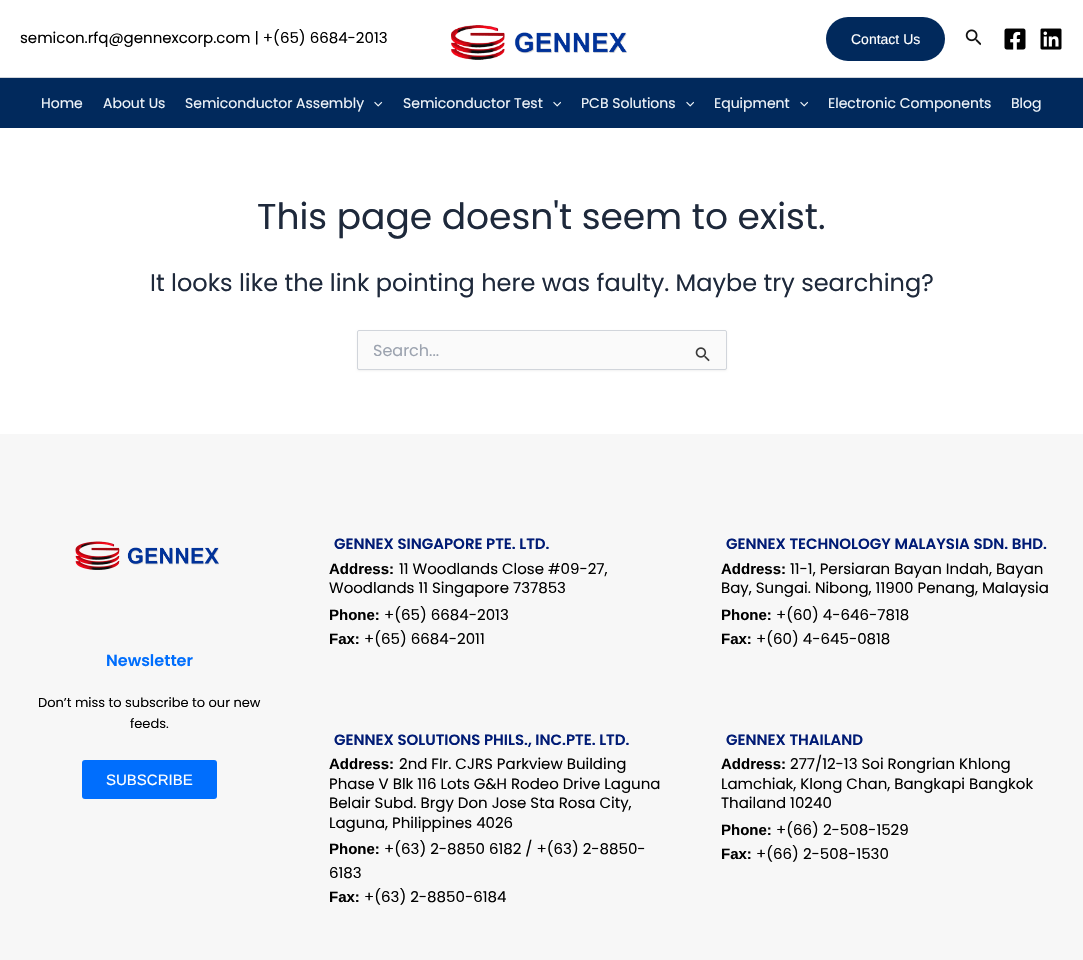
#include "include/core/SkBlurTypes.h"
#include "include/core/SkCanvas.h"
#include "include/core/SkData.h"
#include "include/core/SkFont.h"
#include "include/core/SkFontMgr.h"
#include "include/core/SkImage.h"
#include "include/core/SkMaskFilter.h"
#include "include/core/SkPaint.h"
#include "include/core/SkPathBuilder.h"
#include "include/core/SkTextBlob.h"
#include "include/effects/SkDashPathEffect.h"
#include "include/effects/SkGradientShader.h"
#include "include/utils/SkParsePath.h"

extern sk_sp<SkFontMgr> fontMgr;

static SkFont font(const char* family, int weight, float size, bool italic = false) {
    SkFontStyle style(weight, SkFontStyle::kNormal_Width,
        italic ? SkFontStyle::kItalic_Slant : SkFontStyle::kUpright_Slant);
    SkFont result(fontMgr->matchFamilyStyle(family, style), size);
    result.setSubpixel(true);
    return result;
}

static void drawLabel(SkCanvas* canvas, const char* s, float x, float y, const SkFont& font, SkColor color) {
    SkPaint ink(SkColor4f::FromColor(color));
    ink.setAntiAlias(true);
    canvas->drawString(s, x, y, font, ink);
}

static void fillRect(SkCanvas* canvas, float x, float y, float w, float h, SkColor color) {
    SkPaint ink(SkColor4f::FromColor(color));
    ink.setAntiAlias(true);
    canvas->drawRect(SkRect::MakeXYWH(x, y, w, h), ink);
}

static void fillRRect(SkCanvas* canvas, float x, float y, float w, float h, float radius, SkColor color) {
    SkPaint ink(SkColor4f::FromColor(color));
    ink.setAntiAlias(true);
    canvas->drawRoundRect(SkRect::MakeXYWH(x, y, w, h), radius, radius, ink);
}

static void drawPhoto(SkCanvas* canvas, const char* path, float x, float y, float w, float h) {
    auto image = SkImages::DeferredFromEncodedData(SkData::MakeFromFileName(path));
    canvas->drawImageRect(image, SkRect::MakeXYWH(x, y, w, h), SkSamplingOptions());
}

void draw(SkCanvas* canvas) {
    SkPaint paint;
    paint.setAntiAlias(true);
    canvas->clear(0xFFFFFFFF);
    fillRect(canvas, 0, 77, 1083, 1, 0xFFD1D5DB);
    SkFont font1 = font("Poppins", 400, 15);
    drawLabel(canvas, "semicon.rfq@gennexcorp.com | +(65) 6684-2013", 20, 43, font1, 0xFF000000);
    drawPhoto(canvas, "assets/img1.png", 451, 25, 176, 35);
    fillRRect(canvas, 826, 17, 119, 44, 22, 0xFF01295C);
    SkFont font2 = font("Liberation Sans", 400, 14);
    drawLabel(canvas, "Contact Us", 851, 44, font2, 0xFFFFFFFF);
    drawPhoto(canvas, "assets/img2.png", 965, 29, 16, 17);
    drawPhoto(canvas, "assets/img3.png", 1004, 28, 22, 22);
    drawPhoto(canvas, "assets/img4.png", 1040, 28, 22, 22);
    fillRect(canvas, 0, 78, 1083, 50, 0xFF01295C);
    SkFont font3 = font("Poppins", 400, 14);
    drawLabel(canvas, "Home", 41, 108, font3, 0xFFF0F5FA);
    drawLabel(canvas, "About Us", 103, 108, font3, 0xFFF0F5FA);
    drawLabel(canvas, "Semiconductor Assembly", 185, 108, font3, 0xFFF0F5FA);
    drawPhoto(canvas, "assets/img5.png", 374, 101, 9, 6);
    drawLabel(canvas, "Semiconductor Test", 403, 108, font3, 0xFFF0F5FA);
    drawPhoto(canvas, "assets/img6.png", 553, 101, 8, 6);
    drawLabel(canvas, "PCB Solutions", 581, 108, font3, 0xFFF0F5FA);
    drawPhoto(canvas, "assets/img6.png", 686, 101, 8, 6);
    drawLabel(canvas, "Equipment", 714, 108, font3, 0xFFF0F5FA);
    drawPhoto(canvas, "assets/img6.png", 800, 101, 8, 6);
    drawLabel(canvas, "Electronic Components", 828, 108, font3, 0xFFF0F5FA);
    drawLabel(canvas, "Blog", 1011, 108, font3, 0xFFF0F5FA);
    SkFont font4 = font("Poppins", 400, 36);
    drawLabel(canvas, "This page doesn't seem to exist.", 257, 229, font4, 0xFF1E293B);
    SkFont font5 = font("Poppins", 400, 24);
    drawLabel(canvas, "It looks like the link pointing here was faulty. Maybe try searching?", 150, 291, font5, 0xFF1E293B);
    paint.setColor(0x0D000000);
    paint.setMaskFilter(SkMaskFilter::MakeBlur(kNormal_SkBlurStyle, 1));
    canvas->drawRoundRect(SkRect::MakeXYWH(357, 331, 370, 40), 2, 2, paint);
    paint.setMaskFilter(nullptr);
    paint.setColor(0xFFFAFAFA);
    canvas->drawRoundRect(SkRect::MakeXYWH(357.5f, 330.5f, 369, 39), 1.5f, 1.5f, paint);
    paint.setStroke(true);
    paint.setStrokeWidth(1);
    paint.setColor(0xFFD1D5DB);
    canvas->drawRoundRect(SkRect::MakeXYWH(357.5f, 330.5f, 369, 39), 1.5f, 1.5f, paint);
    SkFont font6 = font("Poppins", 400, 16);
    drawLabel(canvas, "Search...", 373, 356, font6, 0xFF9CA3AF);
    drawPhoto(canvas, "assets/img7.png", 695, 347, 15, 15);
    fillRect(canvas, 0, 434, 1083, 526, 0xFFF7F7F7);
    drawPhoto(canvas, "assets/img8.png", 75, 541, 144, 29);
    SkFont font7 = font("Poppins", 600, 16);
    drawLabel(canvas, "Newsletter", 106, 666, font7, 0xFF006EFD);
    SkFont font8 = font("Poppins", 400, 13);
    drawLabel(canvas, "Don’t miss to subscribe to our new", 38, 707, font8, 0xFF000000);
    drawLabel(canvas, "feeds.", 130, 728, font8, 0xFF000000);
    fillRRect(canvas, 82, 760, 135, 39, 3, 0xFF006EFD);
    SkFont font9 = font("Liberation Sans", 400, 15);
    drawLabel(canvas, "SUBSCRIBE", 106, 785, font9, 0xFFFFFFFF);
    SkFont font10 = font("Poppins", 600, 15);
    drawLabel(canvas, "GENNEX SINGAPORE PTE. LTD.", 334, 549, font10, 0xFF001B75);
    SkFont font11 = font("Liberation Sans", 700, 15);
    drawLabel(canvas, "Address:", 329, 574, font11, 0xFF000000);
    drawLabel(canvas, "11 Woodlands Close #09-27,", 399, 574, font1, 0xFF000000);
    drawLabel(canvas, "Woodlands 11 Singapore 737853", 329, 593, font1, 0xFF000000);
    drawLabel(canvas, "Phone:", 329, 620, font11, 0xFF000000);
    drawLabel(canvas, "+(65) 6684-2013", 384, 620, font1, 0xFF000000);
    drawLabel(canvas, "Fax:", 329, 644, font11, 0xFF000000);
    drawLabel(canvas, "+(65) 6684-2011", 364, 644, font1, 0xFF000000);
    drawLabel(canvas, "GENNEX SOLUTIONS PHILS., INC.PTE. LTD.", 334, 745, font10, 0xFF001B75);
    drawLabel(canvas, "Address:", 329, 769, font11, 0xFF000000);
    drawLabel(canvas, "2nd FIr. CJRS Parkview Building", 399, 769, font1, 0xFF000000);
    drawLabel(canvas, "Phase V Blk 116 Lots G&H Rodeo Drive Laguna", 329, 789, font1, 0xFF000000);
    drawLabel(canvas, "Belair Subd. Brgy Don Jose Sta Rosa City,", 329, 808, font1, 0xFF000000);
    drawLabel(canvas, "Laguna, Philippines 4026", 329, 828, font1, 0xFF000000);
    drawLabel(canvas, "Phone:", 329, 854, font11, 0xFF000000);
    drawLabel(canvas, "+(63) 2-8850 6182 / +(63) 2-8850-", 384, 854, font1, 0xFF000000);
    drawLabel(canvas, "6183", 329, 878, font1, 0xFF000000);
    drawLabel(canvas, "Fax:", 329, 902, font11, 0xFF000000);
    drawLabel(canvas, "+(63) 2-8850-6184", 364, 902, font1, 0xFF000000);
    drawLabel(canvas, "GENNEX TECHNOLOGY MALAYSIA SDN. BHD.", 726, 549, font10, 0xFF001B75);
    drawLabel(canvas, "Address:", 721, 574, font11, 0xFF000000);
    drawLabel(canvas, "11-1, Persiaran Bayan Indah, Bayan", 790, 574, font1, 0xFF000000);
    drawLabel(canvas, "Bay, Sungai. Nibong, 11900 Penang, Malaysia", 721, 593, font1, 0xFF000000);
    drawLabel(canvas, "Phone:", 721, 620, font11, 0xFF000000);
    drawLabel(canvas, "+(60) 4-646-7818", 776, 620, font1, 0xFF000000);
    drawLabel(canvas, "Fax:", 721, 644, font11, 0xFF000000);
    drawLabel(canvas, "+(60) 4-645-0818", 756, 644, font1, 0xFF000000);
    drawLabel(canvas, "GENNEX THAILAND", 726, 745, font10, 0xFF001B75);
    drawLabel(canvas, "Address:", 721, 769, font11, 0xFF000000);
    drawLabel(canvas, "277/12-13 Soi Rongrian Khlong", 790, 769, font1, 0xFF000000);
    drawLabel(canvas, "Lamchiak, Klong Chan, Bangkapi Bangkok", 721, 789, font1, 0xFF000000);
    drawLabel(canvas, "Thailand 10240", 721, 808, font1, 0xFF000000);
    drawLabel(canvas, "Phone:", 721, 835, font11, 0xFF000000);
    drawLabel(canvas, "+(66) 2-508-1529", 776, 835, font1, 0xFF000000);
    drawLabel(canvas, "Fax:", 721, 859, font11, 0xFF000000);
    drawLabel(canvas, "+(66) 2-508-1530", 756, 859, font1, 0xFF000000);
}
